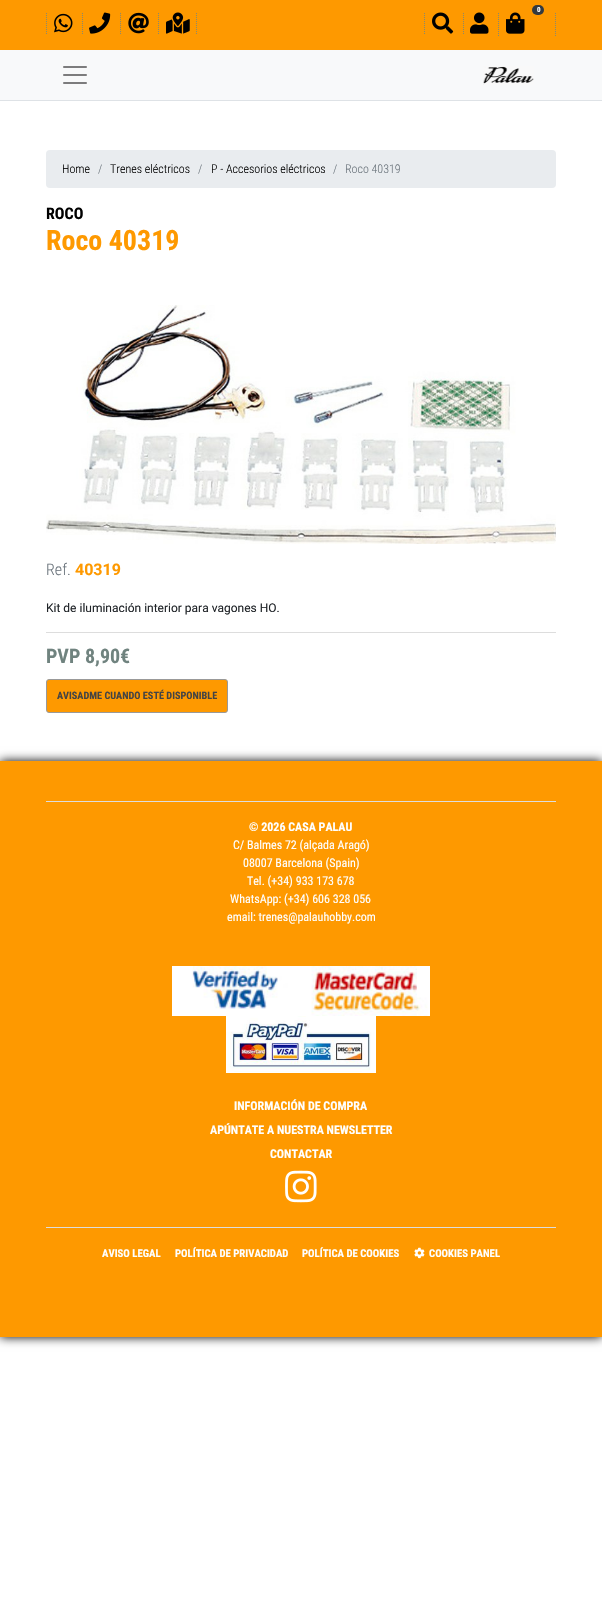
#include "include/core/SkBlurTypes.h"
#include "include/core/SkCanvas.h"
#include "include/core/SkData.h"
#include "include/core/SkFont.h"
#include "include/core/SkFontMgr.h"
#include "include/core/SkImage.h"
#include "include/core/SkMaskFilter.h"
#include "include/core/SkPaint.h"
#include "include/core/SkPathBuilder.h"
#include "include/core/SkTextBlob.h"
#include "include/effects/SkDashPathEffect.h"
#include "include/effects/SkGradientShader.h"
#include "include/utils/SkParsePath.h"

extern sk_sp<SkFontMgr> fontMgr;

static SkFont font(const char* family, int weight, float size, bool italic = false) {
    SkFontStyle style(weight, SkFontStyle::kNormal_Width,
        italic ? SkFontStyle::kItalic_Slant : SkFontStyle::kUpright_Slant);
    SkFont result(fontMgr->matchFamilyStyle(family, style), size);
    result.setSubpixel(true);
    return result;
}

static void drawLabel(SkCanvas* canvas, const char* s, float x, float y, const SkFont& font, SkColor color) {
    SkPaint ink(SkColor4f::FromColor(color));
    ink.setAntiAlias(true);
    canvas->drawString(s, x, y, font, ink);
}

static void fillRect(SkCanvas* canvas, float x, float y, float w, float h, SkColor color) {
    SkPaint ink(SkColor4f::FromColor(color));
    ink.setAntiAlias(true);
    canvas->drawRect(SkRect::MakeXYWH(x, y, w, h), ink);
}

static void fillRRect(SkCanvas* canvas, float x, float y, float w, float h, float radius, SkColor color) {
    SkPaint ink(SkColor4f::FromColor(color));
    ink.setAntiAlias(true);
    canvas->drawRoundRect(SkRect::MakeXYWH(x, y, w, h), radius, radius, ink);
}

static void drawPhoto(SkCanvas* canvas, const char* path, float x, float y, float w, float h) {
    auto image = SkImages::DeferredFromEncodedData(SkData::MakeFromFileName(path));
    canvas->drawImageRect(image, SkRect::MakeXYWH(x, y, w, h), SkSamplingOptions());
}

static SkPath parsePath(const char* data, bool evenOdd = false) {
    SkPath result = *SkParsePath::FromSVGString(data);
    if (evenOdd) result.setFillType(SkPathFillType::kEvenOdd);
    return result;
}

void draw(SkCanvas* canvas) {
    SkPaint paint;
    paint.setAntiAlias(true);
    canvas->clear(0xFFFFFFFF);
    fillRect(canvas, 0, 0, 602, 50, 0xFFFE9900);
    paint.setStroke(true);
    paint.setStrokeWidth(1);
    paint.setColor(0xFF868971);
    paint.setPathEffect(SkDashPathEffect::Make({{1, 1}}, 0));
    canvas->drawPath(parsePath("M555.5 13V36M498.5 13V36"), paint);
    paint.setPathEffect(nullptr);
    fillRRect(canvas, 532, 5, 12, 10, 5, 0xFF343A40);
    SkFont font1 = font("Roboto Condensed", 700, 7);
    drawLabel(canvas, "0", 537, 12, font1, 0xFFFFFFFF);
    drawPhoto(canvas, "assets/img1.png", 506, 12, 19, 22);
    paint.setPathEffect(SkDashPathEffect::Make({{1, 1}}, 0));
    canvas->drawPath(parsePath("M424.5 13V35"), paint);
    paint.setPathEffect(nullptr);
    drawPhoto(canvas, "assets/img2.png", 432, 12, 22, 22);
    paint.setPathEffect(SkDashPathEffect::Make({{1, 1}}, 0));
    canvas->drawPath(parsePath("M463.5 13V35"), paint);
    paint.setPathEffect(nullptr);
    drawPhoto(canvas, "assets/img3.png", 470, 12, 19, 22);
    paint.setPathEffect(SkDashPathEffect::Make({{1, 1}}, 0));
    canvas->drawPath(parsePath("M46.5 13V35"), paint);
    paint.setPathEffect(nullptr);
    drawPhoto(canvas, "assets/img4.png", 54, 13, 19, 20);
    paint.setPathEffect(SkDashPathEffect::Make({{1, 1}}, 0));
    canvas->drawPath(parsePath("M82.5 13V35"), paint);
    paint.setPathEffect(nullptr);
    drawPhoto(canvas, "assets/img5.png", 89, 12, 22, 22);
    paint.setPathEffect(SkDashPathEffect::Make({{1, 1}}, 0));
    canvas->drawPath(parsePath("M120.5 13V35"), paint);
    paint.setPathEffect(nullptr);
    drawPhoto(canvas, "assets/img6.png", 128, 12, 21, 22);
    paint.setPathEffect(SkDashPathEffect::Make({{1, 1}}, 0));
    canvas->drawPath(parsePath("M196.5 13V35M158.5 13V35"), paint);
    paint.setPathEffect(nullptr);
    drawPhoto(canvas, "assets/img7.png", 166, 12, 24, 22);
    fillRect(canvas, 0, 50, 602, 50, 0xFFF8F9FA);
    fillRect(canvas, 0, 100, 602, 1, 0xFFDEE2E6);
    drawPhoto(canvas, "assets/img8.png", 63, 66, 24, 18);
    drawPhoto(canvas, "assets/img9.png", 483, 66, 51, 19);
    fillRRect(canvas, 46, 150, 510, 38, 4, 0xFFE9ECEF);
    SkFont font2 = font("Roboto Condensed", 300, 12);
    drawLabel(canvas, "Home", 62, 173, font2, 0xFF000000);
    drawLabel(canvas, "/", 98, 173, font2, 0xFF6C757D);
    drawLabel(canvas, "Trenes eléctricos", 110, 173, font2, 0xFF000000);
    drawLabel(canvas, "/", 198, 173, font2, 0xFF6C757D);
    drawLabel(canvas, "P - Accesorios eléctricos", 211, 173, font2, 0xFF000000);
    drawLabel(canvas, "/", 333, 173, font2, 0xFF6C757D);
    drawLabel(canvas, "Roco 40319", 345, 173, font2, 0xFF6C757D);
    SkFont font3 = font("Roboto Condensed", 700, 16);
    drawLabel(canvas, "ROCO", 46, 219, font3, 0xFF000000);
    SkFont font4 = font("Roboto Condensed", 700, 28);
    drawLabel(canvas, "Roco 40319", 46, 250, font4, 0xFFFE9900);
    drawPhoto(canvas, "assets/img10.png", 46, 305, 510, 239);
    SkFont font5 = font("Roboto Condensed", 300, 16);
    drawLabel(canvas, "Ref.", 46, 575, font5, 0xFF6C757D);
    SkFont font6 = font("Roboto", 700, 16);
    drawLabel(canvas, "40319", 75, 575, font6, 0xFFFE9900);
    SkFont font7 = font("Roboto", 400, 12);
    drawLabel(canvas, "Kit de iluminación interior para vagones HO.", 46, 612, font7, 0xFF212529);
    fillRect(canvas, 46, 632, 510, 1, 0xFFDDDDDD);
    SkFont font8 = font("Roboto Condensed", 700, 20);
    drawLabel(canvas, "PVP 8,90€", 46, 663, font8, 0xFF70837F);
    paint.setStroke(false);
    paint.setColor(0xFFFE9900);
    canvas->drawRoundRect(SkRect::MakeXYWH(46.5f, 679.5f, 181, 33), 2.5f, 2.5f, paint);
    paint.setStroke(true);
    paint.setColor(0xFF999999);
    canvas->drawRoundRect(SkRect::MakeXYWH(46.5f, 679.5f, 181, 33), 2.5f, 2.5f, paint);
    SkFont font9 = font("Roboto Condensed", 700, 10.25f);
    drawLabel(canvas, "AVISADME CUANDO ESTÉ DISPONIBLE", 57, 699, font9, 0xFF444444);
    paint.setStroke(false);
    paint.setColor(0xFF000000);
    paint.setMaskFilter(SkMaskFilter::MakeBlur(kNormal_SkBlurStyle, 5));
    canvas->drawRect(SkRect::MakeXYWH(0, 761, 602, 576), paint);
    paint.setMaskFilter(nullptr);
    fillRect(canvas, 0, 761, 602, 576, 0xFFFE9900);
    fillRect(canvas, 46, 801, 510, 1, 0xFFDDDDDD);
    SkFont font10 = font("Roboto Condensed", 700, 12);
    drawLabel(canvas, "© 2026 CASA PALAU", 249, 831, font10, 0xFFFFFFFF);
    SkFont font11 = font("Roboto Condensed", 400, 12);
    drawLabel(canvas, "C/ Balmes 72 (alçada Aragó)", 233, 849, font11, 0xFFFFFFFF);
    drawLabel(canvas, "08007 Barcelona (Spain)", 243, 867, font11, 0xFFFFFFFF);
    drawLabel(canvas, "Tel. (+34) 933 173 678", 247, 885, font11, 0xFFFFFFFF);
    drawLabel(canvas, "WhatsApp: (+34) 606 328 056", 230, 903, font11, 0xFFFFFFFF);
    drawLabel(canvas, "email: trenes@palauhobby.com", 227, 921, font11, 0xFFFFFFFF);
    drawPhoto(canvas, "assets/img11.png", 172, 966, 129, 50);
    drawPhoto(canvas, "assets/img12.png", 301, 966, 129, 50);
    drawPhoto(canvas, "assets/img13.png", 226, 1016, 150, 57);
    drawLabel(canvas, "INFORMACIÓN DE COMPRA", 234, 1110, font10, 0xFFFFFFFF);
    drawLabel(canvas, "APÚNTATE A NUESTRA NEWSLETTER", 210, 1134, font10, 0xFFFFFFFF);
    drawLabel(canvas, "CONTACTAR", 270, 1158, font10, 0xFFFFFFFF);
    drawPhoto(canvas, "assets/img14.png", 285, 1170, 32, 33);
    fillRect(canvas, 46, 1227, 510, 1, 0xFFDDDDDD);
    SkFont font12 = font("Roboto Condensed", 700, 10.75f);
    drawLabel(canvas, "AVISO LEGAL", 102, 1257, font12, 0xFFFFFFFF);
    drawLabel(canvas, "POLÍTICA DE PRIVACIDAD", 175, 1257, font12, 0xFFFFFFFF);
    drawLabel(canvas, "POLÍTICA DE COOKIES", 302, 1257, font12, 0xFFFFFFFF);
    drawPhoto(canvas, "assets/img15.png", 414, 1247, 11, 12);
    drawLabel(canvas, "COOKIES PANEL", 429, 1257, font12, 0xFFFFFFFF);
}
